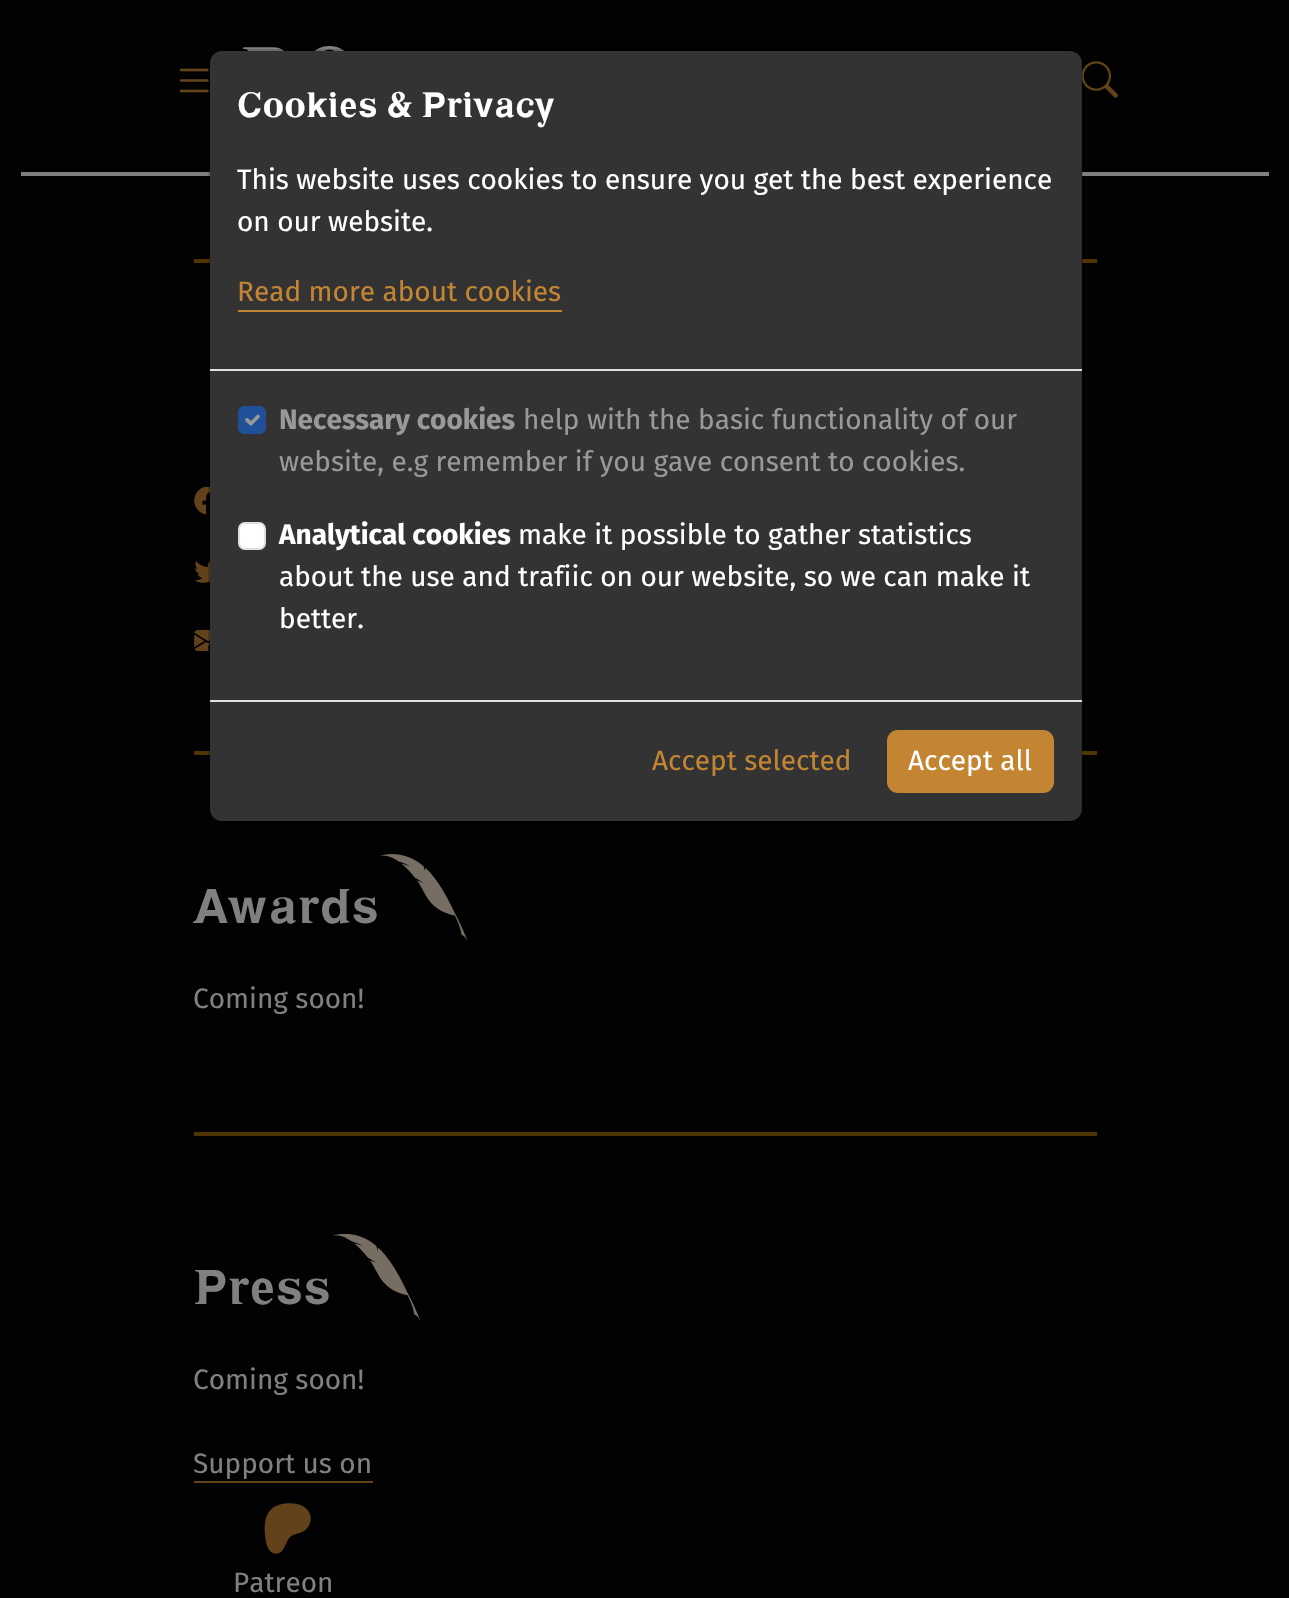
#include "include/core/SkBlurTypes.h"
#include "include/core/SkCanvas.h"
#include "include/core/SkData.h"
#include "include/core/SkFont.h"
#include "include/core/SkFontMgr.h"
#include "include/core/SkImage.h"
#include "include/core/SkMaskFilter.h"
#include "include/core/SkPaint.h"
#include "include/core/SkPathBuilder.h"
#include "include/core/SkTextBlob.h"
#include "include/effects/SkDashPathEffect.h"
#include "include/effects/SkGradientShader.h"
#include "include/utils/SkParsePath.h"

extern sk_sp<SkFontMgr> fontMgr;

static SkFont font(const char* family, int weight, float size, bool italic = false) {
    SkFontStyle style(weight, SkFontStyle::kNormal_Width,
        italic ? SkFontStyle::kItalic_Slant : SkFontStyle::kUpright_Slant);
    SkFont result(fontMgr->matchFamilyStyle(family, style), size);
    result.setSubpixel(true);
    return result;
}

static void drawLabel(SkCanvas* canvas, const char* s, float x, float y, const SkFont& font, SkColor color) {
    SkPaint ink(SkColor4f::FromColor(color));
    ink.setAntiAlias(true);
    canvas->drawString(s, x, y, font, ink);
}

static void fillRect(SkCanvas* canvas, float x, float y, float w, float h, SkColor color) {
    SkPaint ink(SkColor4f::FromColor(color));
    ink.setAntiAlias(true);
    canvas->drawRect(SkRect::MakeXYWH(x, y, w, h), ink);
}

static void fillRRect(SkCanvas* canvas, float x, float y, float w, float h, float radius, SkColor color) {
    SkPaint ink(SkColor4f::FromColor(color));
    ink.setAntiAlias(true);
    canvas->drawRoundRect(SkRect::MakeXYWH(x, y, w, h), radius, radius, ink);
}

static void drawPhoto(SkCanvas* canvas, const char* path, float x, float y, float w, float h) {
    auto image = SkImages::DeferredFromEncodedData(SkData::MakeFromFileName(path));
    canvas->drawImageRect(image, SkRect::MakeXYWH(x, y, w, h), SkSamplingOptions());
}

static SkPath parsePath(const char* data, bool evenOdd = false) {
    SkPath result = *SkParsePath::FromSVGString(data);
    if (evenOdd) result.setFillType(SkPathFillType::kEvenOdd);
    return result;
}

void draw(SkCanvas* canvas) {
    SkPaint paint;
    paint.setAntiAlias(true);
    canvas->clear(0xFF020202);
    fillRect(canvas, 21, 172, 1248, 4, 0xFF808080);
    drawPhoto(canvas, "assets/img1.png", 243, 46, 102, 5);
    drawPhoto(canvas, "assets/img2.png", 179, 68, 30, 25);
    drawPhoto(canvas, "assets/img3.png", 1082, 61, 36, 37);
    fillRect(canvas, 194, 259, 903, 4, 0xFF4F3503);
    fillRect(canvas, 194, 751, 903, 4, 0xFF4F3503);
    fillRRect(canvas, 210, 51, 872, 770, 12, 0xFF333333);
    drawPhoto(canvas, "assets/img4.png", 194, 487, 16, 28);
    drawPhoto(canvas, "assets/img5.png", 194, 561, 16, 22);
    drawPhoto(canvas, "assets/img6.png", 194, 630, 16, 21);
    paint.setStroke(true);
    paint.setStrokeWidth(2);
    paint.setColor(0x2E000000);
    canvas->drawRoundRect(SkRect::MakeXYWH(209, 50, 873, 772), 13, 13, paint);
    fillRect(canvas, 210, 369, 872, 2, 0xFFDEE2E6);
    SkFont font1 = font("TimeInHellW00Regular", 400, 35);
    drawLabel(canvas, "Cookies & Privacy", 237, 117, font1, 0xFFFFFFFF);
    SkFont font2 = font("Fira Sans", 400, 28);
    drawLabel(canvas, "This website uses cookies to ensure you get the best experience", 237, 189, font2, 0xFFFFFFFF);
    drawLabel(canvas, "on our website.", 237, 231, font2, 0xFFFFFFFF);
    drawLabel(canvas, "Read more about cookies", 237, 301, font2, 0xFFC48533);
    fillRect(canvas, 238, 310, 324, 2, 0xFFC48533);
    fillRRect(canvas, 238, 406, 28, 28, 7, 0xFF205198);
    paint.setStrokeWidth(3.7f);
    paint.setStrokeCap(SkPaint::kRound_Cap);
    paint.setStrokeJoin(SkPaint::kRound_Join);
    paint.setColor(0xFF999999);
    canvas->drawPath(parsePath("M247 420L251 423.5L258 416.5"), paint);
    paint.setStrokeWidth(2);
    paint.setStrokeCap(SkPaint::kButt_Cap);
    paint.setStrokeJoin(SkPaint::kMiter_Join);
    paint.setColor(0xFF205198);
    canvas->drawRoundRect(SkRect::MakeXYWH(239, 407, 26, 26), 6, 6, paint);
    SkFont font3 = font("Fira Sans", 700, 28);
    drawLabel(canvas, "Necessary cookies", 279, 429, font3, 0xFF999999);
    drawLabel(canvas, "help with the basic functionality of our", 523, 429, font2, 0xFF999999);
    drawLabel(canvas, "website, e.g remember if you gave consent to cookies.", 279, 471, font2, 0xFF999999);
    paint.setStroke(false);
    paint.setColor(0xFFFFFFFF);
    canvas->drawRoundRect(SkRect::MakeXYWH(239, 523, 26, 26), 6, 6, paint);
    paint.setStroke(true);
    paint.setColor(0xFFDEE2E6);
    canvas->drawRoundRect(SkRect::MakeXYWH(239, 523, 26, 26), 6, 6, paint);
    drawLabel(canvas, "Analytical cookies", 279, 544, font3, 0xFFFFFFFF);
    drawLabel(canvas, "make it possible to gather statistics", 518, 544, font2, 0xFFFFFFFF);
    drawLabel(canvas, "about the use and trafiic on our website, so we can make it", 279, 586, font2, 0xFFFFFFFF);
    drawLabel(canvas, "better.", 279, 628, font2, 0xFFFFFFFF);
    fillRect(canvas, 210, 700, 872, 2, 0xFFDEE2E6);
    drawLabel(canvas, "Accept selected", 652, 770, font2, 0xFFC48533);
    fillRRect(canvas, 887, 730, 167, 63, 11, 0xFFC48533);
    drawLabel(canvas, "Accept all", 908, 770, font2, 0xFFFFFFFF);
    SkFont font4 = font("TimeInHellW00Regular", 400, 48.5f);
    drawLabel(canvas, "Awards", 193, 923, font4, 0xFF808080);
    drawPhoto(canvas, "assets/img7.png", 380, 854, 87, 86);
    drawLabel(canvas, "Coming soon!", 193, 1008, font2, 0xFF808080);
    fillRect(canvas, 194, 1132, 903, 4, 0xFF4F3503);
    drawLabel(canvas, "Press", 193, 1304, font4, 0xFF808080);
    drawPhoto(canvas, "assets/img8.png", 333, 1234, 87, 87);
    drawLabel(canvas, "Coming soon!", 193, 1389, font2, 0xFF808080);
    drawLabel(canvas, "Support us on", 193, 1473, font2, 0xFF808080);
    fillRect(canvas, 194, 1481, 179, 2, 0xFF62431A);
    drawPhoto(canvas, "assets/img9.png", 264, 1503, 47, 51);
    drawLabel(canvas, "Patreon", 233, 1592, font2, 0xFF808080);
}
